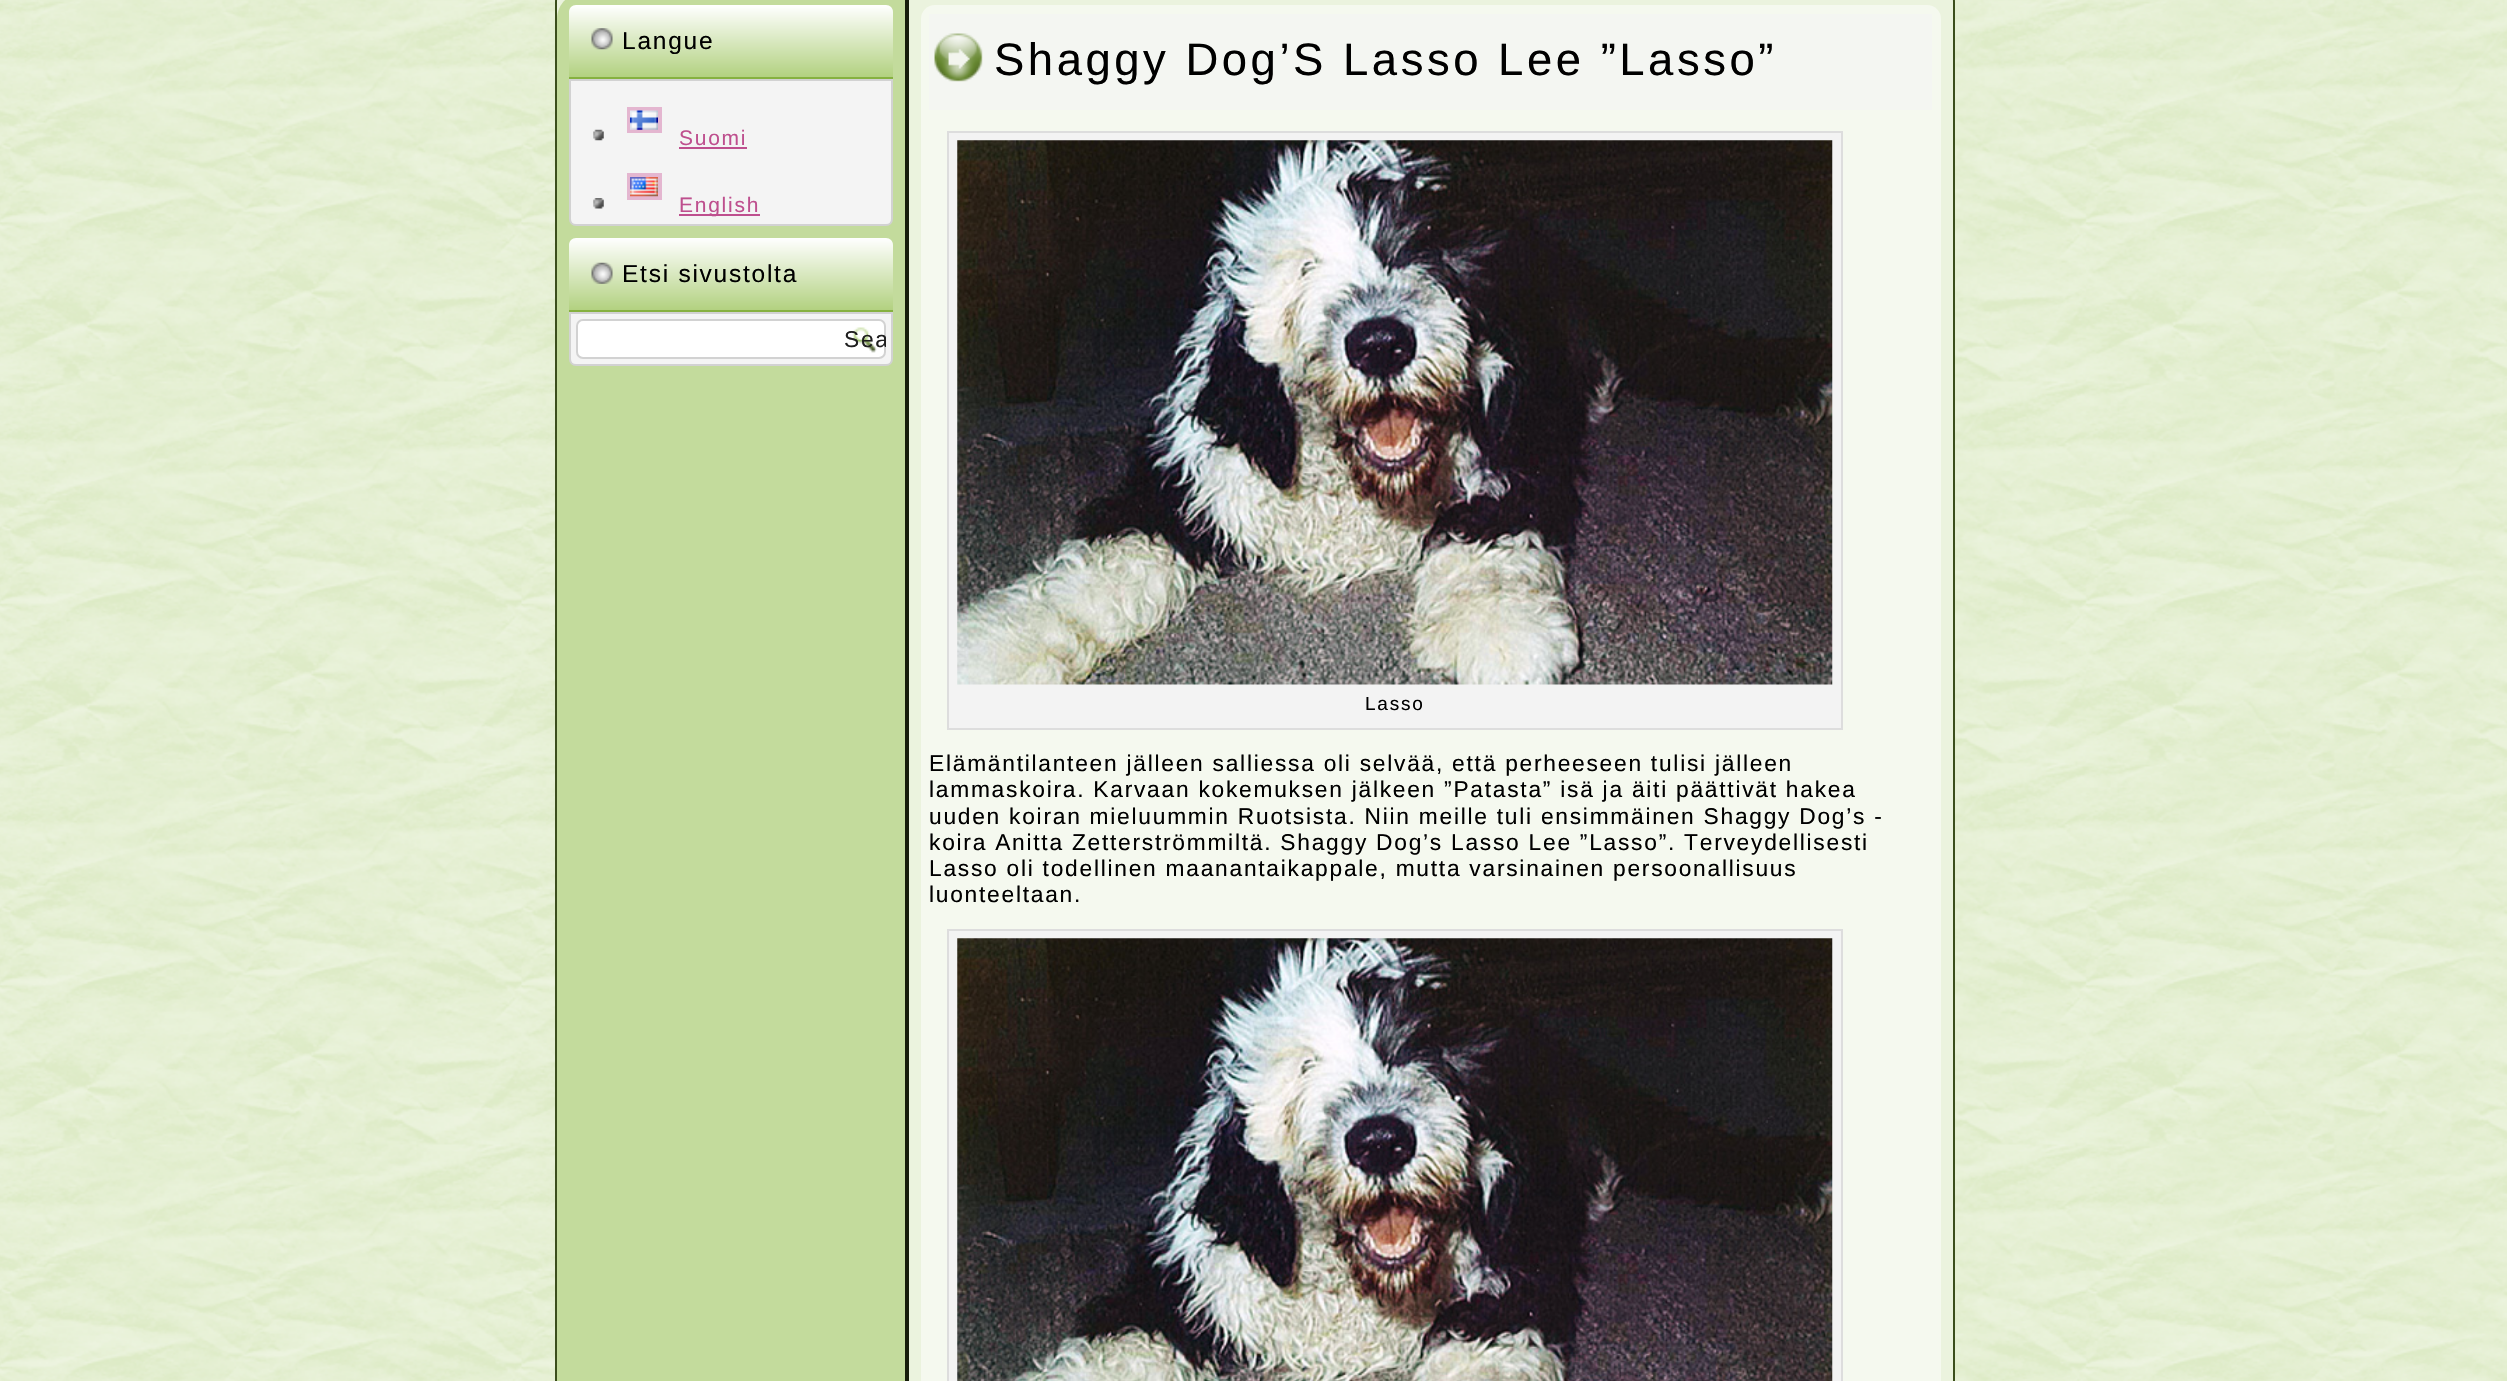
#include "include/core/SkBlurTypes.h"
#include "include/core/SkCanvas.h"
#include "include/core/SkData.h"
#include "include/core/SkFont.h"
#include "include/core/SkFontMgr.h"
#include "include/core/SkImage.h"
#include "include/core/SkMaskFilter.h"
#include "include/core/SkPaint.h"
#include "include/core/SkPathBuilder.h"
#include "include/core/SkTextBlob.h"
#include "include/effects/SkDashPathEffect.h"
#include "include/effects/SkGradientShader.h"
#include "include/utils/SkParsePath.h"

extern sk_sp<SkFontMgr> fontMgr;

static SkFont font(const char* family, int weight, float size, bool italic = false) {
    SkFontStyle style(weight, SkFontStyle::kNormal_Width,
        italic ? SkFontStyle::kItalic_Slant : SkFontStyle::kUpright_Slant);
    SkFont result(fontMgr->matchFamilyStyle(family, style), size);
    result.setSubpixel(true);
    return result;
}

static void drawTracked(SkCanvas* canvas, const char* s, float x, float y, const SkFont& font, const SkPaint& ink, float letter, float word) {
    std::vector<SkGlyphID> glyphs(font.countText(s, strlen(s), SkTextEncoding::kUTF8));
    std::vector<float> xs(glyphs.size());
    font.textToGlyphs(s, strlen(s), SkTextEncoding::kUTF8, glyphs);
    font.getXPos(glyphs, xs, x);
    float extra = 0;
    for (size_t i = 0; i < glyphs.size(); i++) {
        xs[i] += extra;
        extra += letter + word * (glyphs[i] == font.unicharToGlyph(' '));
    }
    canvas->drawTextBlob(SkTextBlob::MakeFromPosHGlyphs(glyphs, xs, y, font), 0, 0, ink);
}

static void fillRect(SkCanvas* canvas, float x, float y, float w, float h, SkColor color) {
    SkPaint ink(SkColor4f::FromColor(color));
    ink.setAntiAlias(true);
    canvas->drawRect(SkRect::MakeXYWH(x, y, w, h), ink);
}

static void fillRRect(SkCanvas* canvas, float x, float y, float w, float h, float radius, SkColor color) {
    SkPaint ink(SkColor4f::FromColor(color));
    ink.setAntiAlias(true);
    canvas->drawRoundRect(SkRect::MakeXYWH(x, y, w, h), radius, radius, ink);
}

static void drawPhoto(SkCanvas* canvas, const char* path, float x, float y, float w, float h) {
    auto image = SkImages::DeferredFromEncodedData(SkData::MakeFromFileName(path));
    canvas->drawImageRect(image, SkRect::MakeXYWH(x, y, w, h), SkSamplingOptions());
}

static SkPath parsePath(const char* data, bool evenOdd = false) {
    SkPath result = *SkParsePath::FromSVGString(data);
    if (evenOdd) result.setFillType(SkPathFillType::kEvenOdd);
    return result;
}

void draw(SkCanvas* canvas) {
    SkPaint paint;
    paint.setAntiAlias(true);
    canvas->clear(0xFFEBF3DD);
    drawPhoto(canvas, "assets/img1.png", 0, 0, 2507, 1381);
    paint.setColor(0xFFEBF3DE);
    canvas->drawRoundRect(SkRect::MakeXYWH(556, -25, 1398, 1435), 27, 27, paint);
    paint.setStroke(true);
    paint.setStrokeWidth(2);
    paint.setColor(0xFF3B4E1C);
    canvas->drawRoundRect(SkRect::MakeXYWH(556, -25, 1398, 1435), 27, 27, paint);
    paint.setStroke(false);
    paint.setColor(0xFFC3DB9C);
    canvas->drawPath(parsePath("M583-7H907V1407H557V19C557 4.5 568.5-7 583-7Z"), paint);
    fillRect(canvas, 905, 0, 4, 1381, 0xFF161D0A);
    {
        const SkColor colors[] = {0xFFFFFFFF, 0xFFB2D180};
        const float stops[] = {0, 1};
        const SkPoint ends[] = {{731, 5.2f}, {731, 77}};
        paint.setShader(SkGradientShader::MakeLinear(ends, colors, stops, 2, SkTileMode::kClamp));
        paint.setAlpha(255);
    }
    canvas->drawPath(parsePath("M576 5H886C890 5 893 8 893 12V77H569V12C569 8 572 5 576 5Z"), paint);
    fillRect(canvas, 569, 77, 324, 2, 0xFF86B140);
    drawPhoto(canvas, "assets/img2.png", 591, 28, 22, 22);
    SkFont font1 = font("Liberation Sans", 400, 24.5f);
    paint.setShader(nullptr);
    paint.setColor(0xFF000000);
    drawTracked(canvas, "Langue", 622, 49, font1, paint, 1.75f, 0);
    paint.setColor(0xFFF4F4F4);
    canvas->drawPath(parsePath("M570 80H892V219C892 222.5 889.5 225 886 225H576C572.5 225 570 222.5 570 219Z"), paint);
    paint.setStroke(true);
    paint.setColor(0xFFD2D2D2);
    canvas->drawPath(parsePath("M570 80H892V219C892 222.5 889.5 225 886 225H576C572.5 225 570 222.5 570 219Z"), paint);
    paint.setStrokeWidth(4);
    paint.setColor(0xFFE4B6D0);
    canvas->drawRect(SkRect::MakeXYWH(629, 109, 31, 22), paint);
    drawPhoto(canvas, "assets/img3.png", 630, 110, 28, 20);
    drawPhoto(canvas, "assets/img4.png", 593, 129, 11, 12);
    SkFont font2 = font("Liberation Sans", 400, 21);
    paint.setStroke(false);
    paint.setColor(0xFFBE4F8E);
    drawTracked(canvas, "Suomi", 679, 145, font2, paint, 1.75f, 0);
    fillRect(canvas, 679, 147, 68, 2, 0xFFBE4F8E);
    paint.setStroke(true);
    paint.setColor(0xFFE4B6D0);
    canvas->drawRect(SkRect::MakeXYWH(629, 175, 31, 23), paint);
    drawPhoto(canvas, "assets/img5.png", 630, 177, 28, 20);
    drawPhoto(canvas, "assets/img6.png", 593, 198, 11, 11);
    fillRect(canvas, 679, 214, 81, 2, 0xFFBE4F8E);
    paint.setStroke(false);
    paint.setColor(0xFFBE4F8E);
    drawTracked(canvas, "English", 679, 212, font2, paint, 1.75f, 0);
    {
        const SkColor colors[] = {0xFFFFFFFF, 0xFFB2D180};
        const float stops[] = {0, 1};
        const SkPoint ends[] = {{731, 238}, {731, 310}};
        paint.setShader(SkGradientShader::MakeLinear(ends, colors, stops, 2, SkTileMode::kClamp));
        paint.setAlpha(255);
    }
    canvas->drawPath(parsePath("M576 238H886C890 238 893 241 893 245V310H569V245C569 241 572 238 576 238Z"), paint);
    fillRect(canvas, 569, 310, 324, 2, 0xFF86B140);
    drawPhoto(canvas, "assets/img7.png", 591, 262, 22, 22);
    paint.setShader(nullptr);
    paint.setColor(0xFF000000);
    drawTracked(canvas, "Etsi sivustolta", 622, 282, font1, paint, 1.75f, 0);
    paint.setColor(0xFFF4F4F4);
    canvas->drawPath(parsePath("M570 313H892V359C892 362.5 889.5 365 886 365H576C572.5 365 570 362.5 570 359Z"), paint);
    paint.setStroke(true);
    paint.setStrokeWidth(2);
    paint.setColor(0xFFD2D2D2);
    canvas->drawPath(parsePath("M570 313H892V359C892 362.5 889.5 365 886 365H576C572.5 365 570 362.5 570 359Z"), paint);
    paint.setStroke(false);
    paint.setColor(0xFFFFFFFF);
    canvas->drawRoundRect(SkRect::MakeXYWH(577, 320, 308, 38), 6, 6, paint);
    paint.setStroke(true);
    paint.setColor(0xFFD2D2D2);
    canvas->drawRoundRect(SkRect::MakeXYWH(577, 320, 308, 38), 6, 6, paint);
    drawPhoto(canvas, "assets/img8.png", 852, 327, 25, 26);
    canvas->save();
    canvas->clipRect(SkRect::MakeXYWH(844, 319, 42, 40));
    SkFont font3 = font("Liberation Sans", 400, 22.75f);
    paint.setStroke(false);
    paint.setColor(0xFF1F1F1F);
    drawTracked(canvas, "Sea", 844, 347, font3, paint, 1.75f, 0);
    canvas->restore();
    fillRRect(canvas, 921, 5, 1020, 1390, 14, 0x80FFFFFF);
    fillRect(canvas, 929, 14, 1003, 96, 0xFFF4F6F2);
    drawPhoto(canvas, "assets/img9.png", 934, 33, 49, 49);
    SkFont font4 = font("Liberation Sans", 400, 45.5f);
    paint.setColor(0xFF000000);
    drawTracked(canvas, "Shaggy Dog’S Lasso Lee ”Lasso”", 994, 75, font4, paint, 3.5f, 0);
    paint.setColor(0xFFF3F3F3);
    canvas->drawRect(SkRect::MakeXYWH(948, 132, 894, 597), paint);
    paint.setStroke(true);
    paint.setColor(0xFFDDDDDD);
    canvas->drawRect(SkRect::MakeXYWH(948, 132, 894, 597), paint);
    drawPhoto(canvas, "assets/img10.png", 957, 140, 876, 545);
    SkFont font5 = font("Liberation Sans", 400, 19);
    paint.setStroke(false);
    paint.setColor(0xFF000000);
    drawTracked(canvas, "Lasso", 1365, 710, font5, paint, 1.75f, 0);
    drawTracked(canvas, "Elämäntilanteen jälleen salliessa oli selvää, että perheeseen tulisi jälleen", 929, 771, font3, paint, 1.75f, 0);
    drawTracked(canvas, "lammaskoira. Karvaan kokemuksen jälkeen ”Patasta” isä ja äiti päättivät hakea", 929, 797, font3, paint, 1.75f, 0);
    drawTracked(canvas, "uuden koiran mieluummin Ruotsista. Niin meille tuli ensimmäinen Shaggy Dog’s -", 929, 824, font3, paint, 1.75f, 0);
    drawTracked(canvas, "koira Anitta Zetterströmmiltä. Shaggy Dog’s Lasso Lee ”Lasso”. Terveydellisesti", 929, 850, font3, paint, 1.75f, 0);
    drawTracked(canvas, "Lasso oli todellinen maanantaikappale, mutta varsinainen persoonallisuus", 929, 876, font3, paint, 1.75f, 0);
    drawTracked(canvas, "luonteeltaan.", 929, 902, font3, paint, 1.75f, 0);
    paint.setColor(0xFFF3F3F3);
    canvas->drawRect(SkRect::MakeXYWH(948, 930, 894, 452), paint);
    paint.setStroke(true);
    paint.setColor(0xFFDDDDDD);
    canvas->drawRect(SkRect::MakeXYWH(948, 930, 894, 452), paint);
    drawPhoto(canvas, "assets/img11.png", 957, 938, 876, 443);
}
